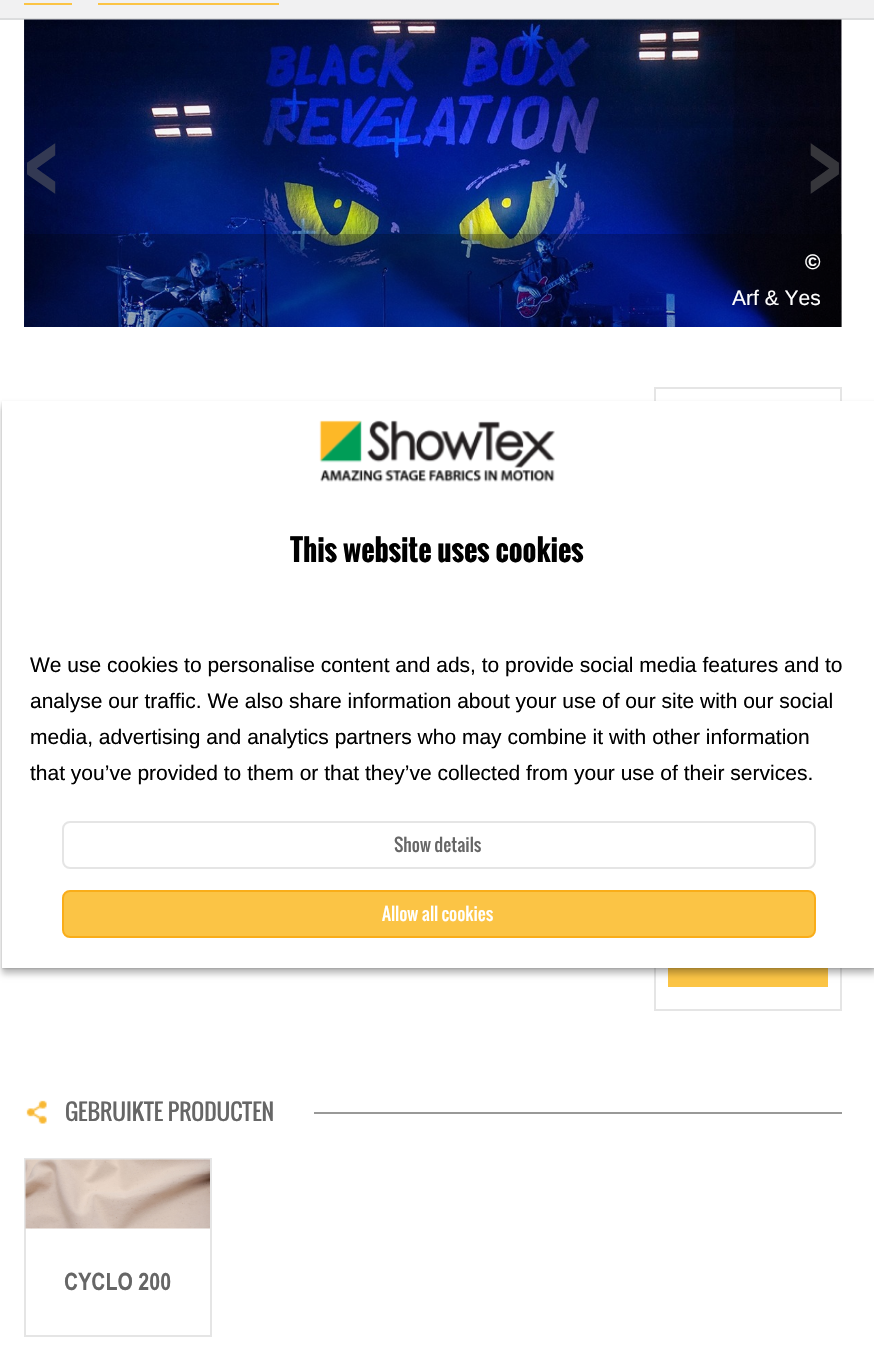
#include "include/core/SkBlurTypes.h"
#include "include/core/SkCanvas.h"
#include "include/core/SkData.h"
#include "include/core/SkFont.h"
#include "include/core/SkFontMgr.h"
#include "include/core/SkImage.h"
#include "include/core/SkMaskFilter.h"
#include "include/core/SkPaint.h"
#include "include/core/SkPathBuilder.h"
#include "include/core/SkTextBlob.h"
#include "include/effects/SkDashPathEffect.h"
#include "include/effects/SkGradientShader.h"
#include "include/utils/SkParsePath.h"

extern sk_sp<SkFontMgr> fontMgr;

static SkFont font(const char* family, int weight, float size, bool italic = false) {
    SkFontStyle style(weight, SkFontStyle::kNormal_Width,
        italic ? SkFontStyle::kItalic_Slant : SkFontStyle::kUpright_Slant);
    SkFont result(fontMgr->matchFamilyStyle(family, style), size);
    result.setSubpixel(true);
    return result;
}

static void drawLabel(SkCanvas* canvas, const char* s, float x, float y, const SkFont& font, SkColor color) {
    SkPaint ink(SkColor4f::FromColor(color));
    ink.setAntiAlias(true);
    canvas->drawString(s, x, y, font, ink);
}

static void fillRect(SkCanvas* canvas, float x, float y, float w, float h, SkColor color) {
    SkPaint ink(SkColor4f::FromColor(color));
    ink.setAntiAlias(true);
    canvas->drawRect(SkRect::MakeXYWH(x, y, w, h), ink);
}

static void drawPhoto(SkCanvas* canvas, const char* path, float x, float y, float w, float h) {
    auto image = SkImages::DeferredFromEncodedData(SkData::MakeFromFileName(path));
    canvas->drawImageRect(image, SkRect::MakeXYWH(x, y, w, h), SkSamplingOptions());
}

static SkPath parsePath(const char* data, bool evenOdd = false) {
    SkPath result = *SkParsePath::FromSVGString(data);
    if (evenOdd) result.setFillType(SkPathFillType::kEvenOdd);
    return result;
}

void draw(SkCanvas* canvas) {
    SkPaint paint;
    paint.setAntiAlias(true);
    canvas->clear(0xFFFFFFFF);
    fillRect(canvas, 0, 0, 874, 18, 0xFFF1F1F2);
    fillRect(canvas, 0, 18, 874, 2, 0xFFDCDDDE);
    fillRect(canvas, 24, 3, 48, 2, 0xFFFBC445);
    fillRect(canvas, 98, 3, 181, 2, 0xFFFBC445);
    drawPhoto(canvas, "assets/img1.png", 24, 19, 818, 308);
    SkFont font1 = font("Oswald", 700, 105);
    drawLabel(canvas, "<", 24, 196, font1, 0xFF333953);
    drawLabel(canvas, ">", 806, 196, font1, 0xFF36363B);
    fillRect(canvas, 24, 234, 818, 93, 0x40000000);
    SkFont font2 = font("Liberation Sans", 700, 21);
    drawLabel(canvas, "©", 805, 269, font2, 0xFFFFFFFF);
    SkFont font3 = font("Liberation Sans", 400, 21);
    drawLabel(canvas, "Arf & Yes", 732, 305, font3, 0xFFFFFFFF);
    paint.setStroke(true);
    paint.setStrokeWidth(2);
    paint.setColor(0xFFE5E5E5);
    canvas->drawRect(SkRect::MakeXYWH(655, 388, 186, 622), paint);
    fillRect(canvas, 668, 968, 160, 19, 0xFFFBC445);
    drawPhoto(canvas, "assets/img2.png", 26, 1100, 21, 24);
    SkFont font4 = font("Oswald", 400, 27);
    drawLabel(canvas, "GEBRUIKTE PRODUCTEN", 65, 1121, font4, 0xFF666666);
    fillRect(canvas, 314, 1112, 528, 2, 0xFF999998);
    canvas->drawRect(SkRect::MakeXYWH(25, 1159, 186, 177), paint);
    drawPhoto(canvas, "assets/img3.png", 25, 1159, 185, 70);
    SkFont font5 = font("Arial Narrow", 700, 24);
    drawLabel(canvas, "CYCLO 200", 64, 1290, font5, 0xFF666666);
    canvas->save();
    canvas->clipPath(parsePath("M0 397H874V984H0ZM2 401H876V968H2Z", true), true);
    paint.setStroke(false);
    paint.setColor(0x40000000);
    paint.setMaskFilter(SkMaskFilter::MakeBlur(kNormal_SkBlurStyle, 3));
    canvas->drawRect(SkRect::MakeXYWH(2, 407, 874, 567), paint);
    paint.setMaskFilter(nullptr);
    canvas->restore();
    paint.setColor(0x2B000000);
    paint.setMaskFilter(SkMaskFilter::MakeBlur(kNormal_SkBlurStyle, 1));
    canvas->drawRect(SkRect::MakeXYWH(2, 402, 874, 567), paint);
    paint.setMaskFilter(nullptr);
    fillRect(canvas, 2, 401, 872, 567, 0xFFFFFFFF);
    drawPhoto(canvas, "assets/img4.png", 319, 420, 236, 62);
    SkFont font6 = font("Oswald", 700, 36);
    drawLabel(canvas, "This website uses cookies", 290, 562, font6, 0xFF000000);
    drawLabel(canvas, "We use cookies to personalise content and ads, to provide social media features and to", 30, 672, font3, 0xFF000000);
    drawLabel(canvas, "analyse our traffic. We also share information about your use of our site with our social", 30, 708, font3, 0xFF000000);
    drawLabel(canvas, "media, advertising and analytics partners who may combine it with other information", 30, 744, font3, 0xFF000000);
    drawLabel(canvas, "that you’ve provided to them or that they’ve collected from your use of their services.", 30, 780, font3, 0xFF000000);
    paint.setStroke(true);
    paint.setColor(0xFFE5E5E5);
    canvas->drawRoundRect(SkRect::MakeXYWH(63, 822, 752, 46), 7, 7, paint);
    SkFont font7 = font("Oswald", 400, 21);
    drawLabel(canvas, "Show details", 394, 852, font7, 0xFF666666);
    paint.setStroke(false);
    paint.setColor(0xFFFBC445);
    canvas->drawRoundRect(SkRect::MakeXYWH(63, 891, 752, 46), 7, 7, paint);
    paint.setStroke(true);
    paint.setColor(0xFFF9AD19);
    canvas->drawRoundRect(SkRect::MakeXYWH(63, 891, 752, 46), 7, 7, paint);
    drawLabel(canvas, "Allow all cookies", 382, 921, font7, 0xFFFFFFFF);
}
